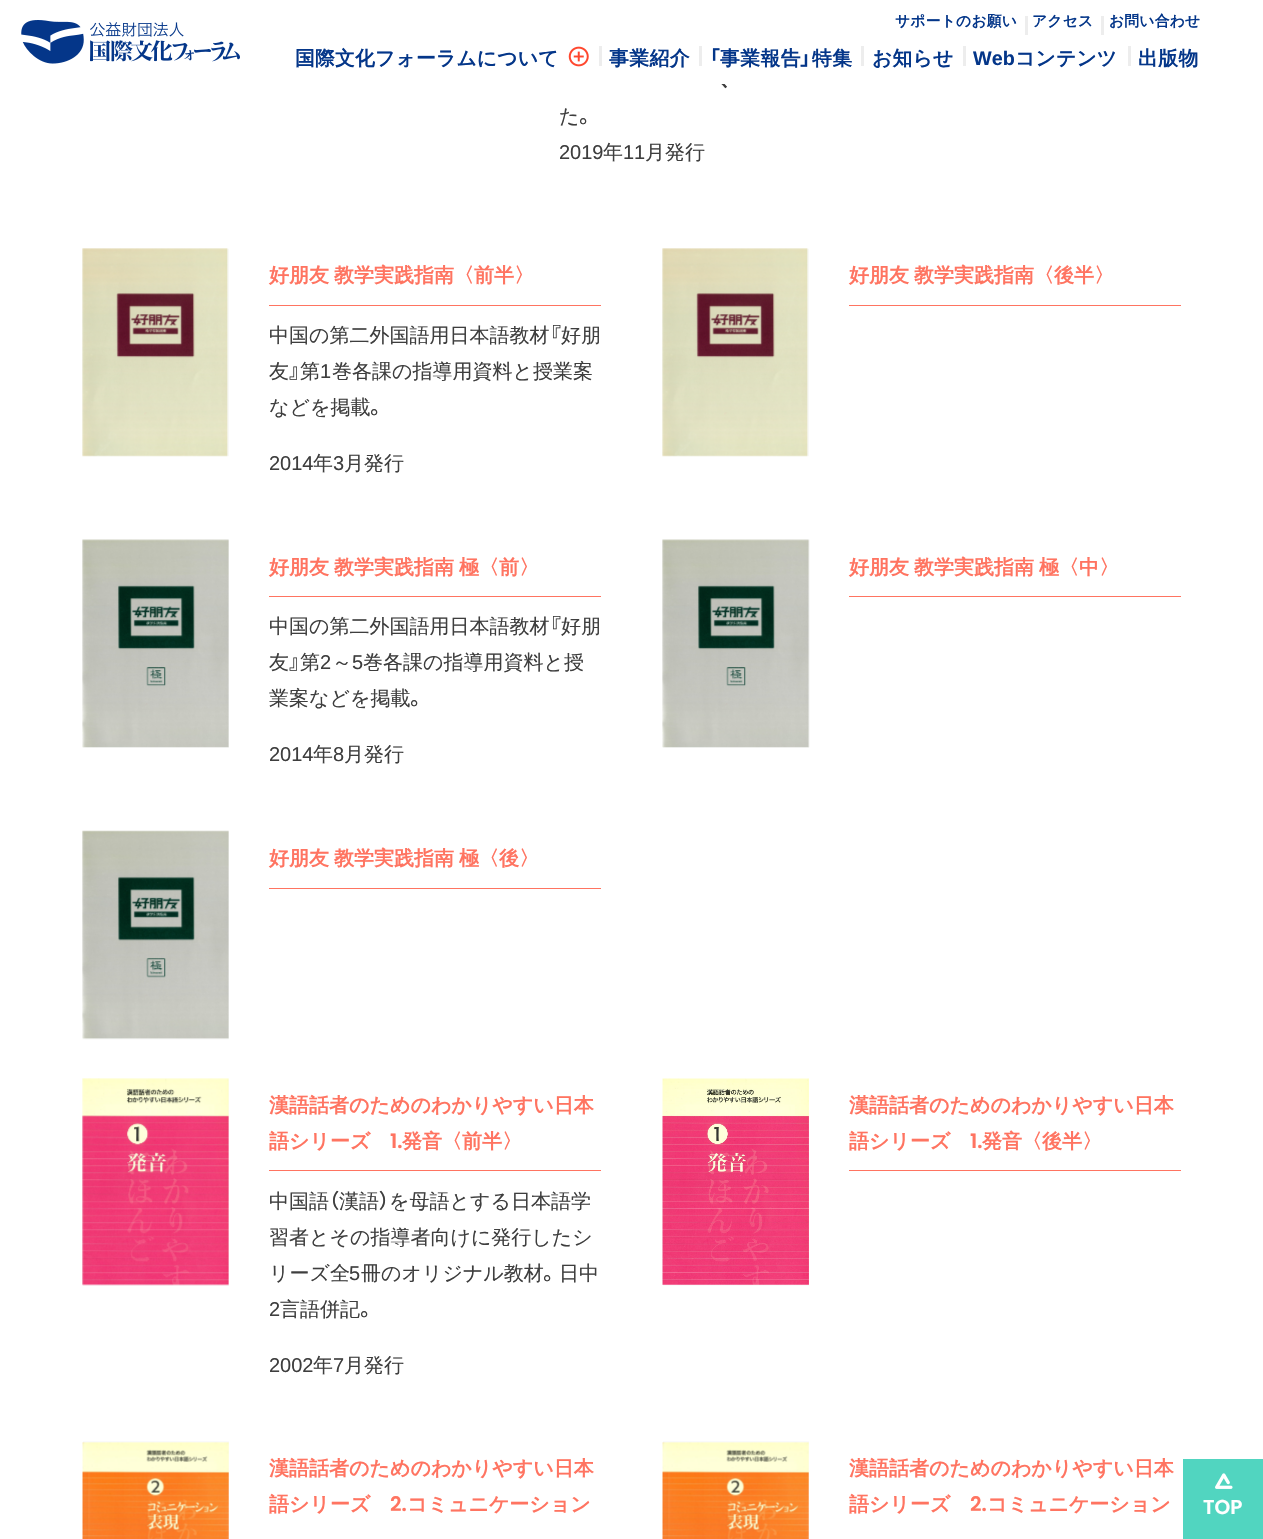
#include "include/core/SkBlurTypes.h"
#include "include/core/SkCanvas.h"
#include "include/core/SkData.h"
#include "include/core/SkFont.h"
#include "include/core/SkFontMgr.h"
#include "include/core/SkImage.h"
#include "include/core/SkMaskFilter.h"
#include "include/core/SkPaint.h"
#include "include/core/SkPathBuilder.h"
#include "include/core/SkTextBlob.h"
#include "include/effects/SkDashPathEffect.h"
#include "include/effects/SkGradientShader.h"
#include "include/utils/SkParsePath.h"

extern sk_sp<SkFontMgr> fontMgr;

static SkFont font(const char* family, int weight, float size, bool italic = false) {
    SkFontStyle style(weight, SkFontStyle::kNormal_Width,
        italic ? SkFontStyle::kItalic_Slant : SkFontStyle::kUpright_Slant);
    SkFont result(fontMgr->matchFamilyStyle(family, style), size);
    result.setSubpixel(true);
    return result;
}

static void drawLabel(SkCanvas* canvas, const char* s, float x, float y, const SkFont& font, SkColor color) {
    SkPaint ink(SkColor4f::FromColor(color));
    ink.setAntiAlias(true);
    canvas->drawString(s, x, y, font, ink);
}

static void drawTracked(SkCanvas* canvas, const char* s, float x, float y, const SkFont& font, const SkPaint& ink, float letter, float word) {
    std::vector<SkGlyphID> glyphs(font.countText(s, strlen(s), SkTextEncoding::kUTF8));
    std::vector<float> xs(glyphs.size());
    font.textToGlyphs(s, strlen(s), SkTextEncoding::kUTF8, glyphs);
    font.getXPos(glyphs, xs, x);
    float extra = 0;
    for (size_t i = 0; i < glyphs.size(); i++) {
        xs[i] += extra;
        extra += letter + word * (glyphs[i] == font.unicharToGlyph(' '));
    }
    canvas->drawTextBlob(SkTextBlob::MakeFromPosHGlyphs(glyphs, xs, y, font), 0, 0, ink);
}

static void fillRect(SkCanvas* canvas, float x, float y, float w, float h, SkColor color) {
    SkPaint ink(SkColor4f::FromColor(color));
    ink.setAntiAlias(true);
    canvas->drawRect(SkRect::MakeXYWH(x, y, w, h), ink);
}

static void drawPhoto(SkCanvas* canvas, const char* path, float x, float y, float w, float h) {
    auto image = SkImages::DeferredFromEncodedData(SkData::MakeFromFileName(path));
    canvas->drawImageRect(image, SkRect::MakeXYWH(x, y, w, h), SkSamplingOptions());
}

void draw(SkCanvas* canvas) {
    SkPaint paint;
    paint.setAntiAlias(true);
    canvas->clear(0xFFFFFFFF);
    SkFont font1 = font("WenQuanYi Zen Hei", 700, 14.75f);
    paint.setColor(0xFF043689);
    drawTracked(canvas, "サポートのお願い", 895, 26, font1, paint, 0.25f, 0);
    fillRect(canvas, 1025, 16, 3, 19, 0xFFEDEDED);
    drawTracked(canvas, "アクセス", 1032, 26, font1, paint, 0.25f, 0);
    fillRect(canvas, 1101, 16, 3, 19, 0xFFEDEDED);
    drawTracked(canvas, "お問い合わせ", 1109, 26, font1, paint, 0.25f, 0);
    SkFont font2 = font("WenQuanYi Zen Hei", 700, 19.75f);
    drawTracked(canvas, "国際文化フォーラムについて", 295, 65, font2, paint, 0.25f, 0);
    drawPhoto(canvas, "assets/img1.png", 568, 46, 21, 21);
    fillRect(canvas, 599, 46, 3, 20, 0xFFEDEDED);
    drawTracked(canvas, "事業紹介", 609, 65, font2, paint, 0.5f, 0);
    fillRect(canvas, 699, 46, 3, 20, 0xFFEDEDED);
    SkFont font3 = font("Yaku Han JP", 700, 19.75f);
    drawLabel(canvas, "「", 709, 65, font3, 0xFF043689);
    drawTracked(canvas, "事業報告", 720, 65, font2, paint, 0.5f, 0);
    drawLabel(canvas, "」", 800, 65, font3, 0xFF043689);
    drawTracked(canvas, "特集", 812, 65, font2, paint, 0.5f, 0);
    fillRect(canvas, 861, 46, 3, 20, 0xFFEDEDED);
    drawTracked(canvas, "お知らせ", 872, 65, font2, paint, 0.25f, 0);
    fillRect(canvas, 963, 46, 3, 20, 0xFFEDEDED);
    SkFont font4 = font("Liberation Sans", 700, 19.75f);
    drawLabel(canvas, "Web", 973, 65, font4, 0xFF043689);
    drawTracked(canvas, "コンテンツ", 1015, 65, font2, paint, 0.25f, 0);
    fillRect(canvas, 1128, 46, 3, 20, 0xFFEDEDED);
    drawTracked(canvas, "出版物", 1138, 65, font2, paint, 0.5f, 0);
    SkFont font5 = font("Yaku Han JP", 500, 20);
    drawLabel(canvas, "、", 720, 87, font5, 0xFF3E3E3E);
    fillRect(canvas, 721, 82, 4, 2, 0xFFFFFFFF);
    drawPhoto(canvas, "assets/img2.png", 21, 20, 63, 44);
    drawPhoto(canvas, "assets/img3.png", 90, 22, 150, 40);
    SkFont font6 = font("WenQuanYi Zen Hei", 500, 20);
    drawLabel(canvas, "た", 559, 123, font6, 0xFF3E3E3E);
    drawLabel(canvas, "。", 579, 123, font5, 0xFF3E3E3E);
    SkFont font7 = font("Liberation Sans", 400, 20);
    drawLabel(canvas, "2019", 559, 159, font7, 0xFF3E3E3E);
    drawLabel(canvas, "年", 603, 159, font6, 0xFF3E3E3E);
    drawLabel(canvas, "11", 623, 159, font7, 0xFF3E3E3E);
    drawLabel(canvas, "月発行", 645, 159, font6, 0xFF3E3E3E);
    fillRect(canvas, 83, 249, 146, 207, 0xFFFAFAFA);
    drawPhoto(canvas, "assets/img4.png", 82, 248, 147, 209);
    fillRect(canvas, 269, 305, 332, 1, 0xFFFF7461);
    SkFont font8 = font("WenQuanYi Zen Hei", 700, 20);
    paint.setColor(0xFFFF7461);
    drawTracked(canvas, "好朋友 教学実践指南〈前半〉", 269, 282, font8, paint, 0, -1);
    drawLabel(canvas, "中国の第二外国語用日本語教材", 269, 342, font6, 0xFF3E3E3E);
    drawLabel(canvas, "『", 549, 342, font5, 0xFF3E3E3E);
    drawLabel(canvas, "好朋", 561, 342, font6, 0xFF3E3E3E);
    drawLabel(canvas, "友", 269, 378, font6, 0xFF3E3E3E);
    drawLabel(canvas, "』", 289, 378, font5, 0xFF3E3E3E);
    drawLabel(canvas, "第", 300, 378, font6, 0xFF3E3E3E);
    drawLabel(canvas, "1", 320, 378, font7, 0xFF3E3E3E);
    drawLabel(canvas, "巻各課の指導用資料と授業案", 332, 378, font6, 0xFF3E3E3E);
    drawLabel(canvas, "などを掲載", 269, 414, font6, 0xFF3E3E3E);
    drawLabel(canvas, "。", 370, 414, font5, 0xFF3E3E3E);
    drawLabel(canvas, "2014", 269, 470, font7, 0xFF3E3E3E);
    drawLabel(canvas, "年", 313, 470, font6, 0xFF3E3E3E);
    drawLabel(canvas, "3", 333, 470, font7, 0xFF3E3E3E);
    drawLabel(canvas, "月発行", 344, 470, font6, 0xFF3E3E3E);
    fillRect(canvas, 663, 249, 146, 207, 0xFFFAFAFA);
    drawPhoto(canvas, "assets/img4.png", 662, 248, 147, 209);
    fillRect(canvas, 849, 305, 332, 1, 0xFFFF7461);
    drawTracked(canvas, "好朋友 教学実践指南〈後半〉", 849, 282, font8, paint, 0, -1);
    fillRect(canvas, 83, 540, 146, 208, 0xFFFAFAFA);
    drawPhoto(canvas, "assets/img5.png", 82, 539, 147, 209);
    fillRect(canvas, 269, 596, 332, 1, 0xFFFF7461);
    drawTracked(canvas, "好朋友 教学実践指南 極〈前〉", 269, 574, font8, paint, 0, -1);
    drawLabel(canvas, "中国の第二外国語用日本語教材", 269, 633, font6, 0xFF3E3E3E);
    drawLabel(canvas, "『", 549, 633, font5, 0xFF3E3E3E);
    drawLabel(canvas, "好朋", 561, 633, font6, 0xFF3E3E3E);
    drawLabel(canvas, "友", 269, 669, font6, 0xFF3E3E3E);
    drawLabel(canvas, "』", 289, 669, font5, 0xFF3E3E3E);
    drawLabel(canvas, "第", 300, 669, font6, 0xFF3E3E3E);
    drawLabel(canvas, "2", 320, 669, font7, 0xFF3E3E3E);
    drawLabel(canvas, "～", 332, 669, font6, 0xFF3E3E3E);
    drawLabel(canvas, "5", 352, 669, font7, 0xFF3E3E3E);
    drawLabel(canvas, "巻各課の指導用資料と授", 363, 669, font6, 0xFF3E3E3E);
    drawLabel(canvas, "業案などを掲載", 269, 705, font6, 0xFF3E3E3E);
    drawLabel(canvas, "。", 410, 705, font5, 0xFF3E3E3E);
    drawLabel(canvas, "2014", 269, 761, font7, 0xFF3E3E3E);
    drawLabel(canvas, "年", 313, 761, font6, 0xFF3E3E3E);
    drawLabel(canvas, "8", 333, 761, font7, 0xFF3E3E3E);
    drawLabel(canvas, "月発行", 344, 761, font6, 0xFF3E3E3E);
    fillRect(canvas, 663, 540, 146, 208, 0xFFFAFAFA);
    drawPhoto(canvas, "assets/img6.png", 662, 539, 148, 209);
    fillRect(canvas, 849, 596, 332, 1, 0xFFFF7461);
    drawTracked(canvas, "好朋友 教学実践指南 極〈中〉", 849, 574, font8, paint, 0, -1);
    fillRect(canvas, 83, 831, 146, 208, 0xFFFAFAFA);
    drawPhoto(canvas, "assets/img7.png", 82, 830, 147, 210);
    fillRect(canvas, 269, 888, 332, 1, 0xFFFF7461);
    drawTracked(canvas, "好朋友 教学実践指南 極〈後〉", 269, 865, font8, paint, 0, -1);
    fillRect(canvas, 83, 1079, 146, 207, 0xFFFAFAFA);
    drawPhoto(canvas, "assets/img8.png", 82, 1078, 147, 208);
    fillRect(canvas, 269, 1170, 332, 1, 0xFFFF7461);
    drawLabel(canvas, "漢語話者のためのわかりやすい日本", 269, 1112, font8, 0xFFFF7461);
    drawLabel(canvas, "語シリーズ", 269, 1148, font8, 0xFFFF7461);
    SkFont font9 = font("Poppins", 600, 20);
    drawLabel(canvas, "1.", 390, 1148, font9, 0xFFFF7461);
    drawLabel(canvas, "発音〈前半〉", 402, 1148, font8, 0xFFFF7461);
    drawLabel(canvas, "中国語", 269, 1208, font6, 0xFF3E3E3E);
    drawLabel(canvas, "（", 329, 1208, font5, 0xFF3E3E3E);
    drawLabel(canvas, "漢語", 339, 1208, font6, 0xFF3E3E3E);
    drawLabel(canvas, "）", 379, 1208, font5, 0xFF3E3E3E);
    drawLabel(canvas, "を母語とする日本語学", 389, 1208, font6, 0xFF3E3E3E);
    drawLabel(canvas, "習者とその指導者向けに発行したシ", 269, 1244, font6, 0xFF3E3E3E);
    drawLabel(canvas, "リーズ全", 269, 1280, font6, 0xFF3E3E3E);
    drawLabel(canvas, "5", 349, 1280, font7, 0xFF3E3E3E);
    drawLabel(canvas, "冊のオリジナル教材", 361, 1280, font6, 0xFF3E3E3E);
    drawLabel(canvas, "。", 543, 1280, font5, 0xFF3E3E3E);
    drawLabel(canvas, "日中", 559, 1280, font6, 0xFF3E3E3E);
    drawLabel(canvas, "2", 269, 1316, font7, 0xFF3E3E3E);
    drawLabel(canvas, "言語併記", 280, 1316, font6, 0xFF3E3E3E);
    drawLabel(canvas, "。", 360, 1316, font5, 0xFF3E3E3E);
    drawLabel(canvas, "2002", 269, 1372, font7, 0xFF3E3E3E);
    drawLabel(canvas, "年", 313, 1372, font6, 0xFF3E3E3E);
    drawLabel(canvas, "7", 333, 1372, font7, 0xFF3E3E3E);
    drawLabel(canvas, "月発行", 344, 1372, font6, 0xFF3E3E3E);
    fillRect(canvas, 663, 1079, 146, 207, 0xFFFAFAFA);
    drawPhoto(canvas, "assets/img9.png", 662, 1078, 147, 207);
    fillRect(canvas, 849, 1170, 332, 1, 0xFFFF7461);
    drawLabel(canvas, "漢語話者のためのわかりやすい日本", 849, 1112, font8, 0xFFFF7461);
    drawLabel(canvas, "語シリーズ", 849, 1148, font8, 0xFFFF7461);
    drawLabel(canvas, "1.", 970, 1148, font9, 0xFFFF7461);
    drawLabel(canvas, "発音〈後半〉", 982, 1148, font8, 0xFFFF7461);
    fillRect(canvas, 83, 1441, 146, 98, 0xFFFAFAFA);
    drawPhoto(canvas, "assets/img10.png", 82, 1442, 147, 97);
    drawLabel(canvas, "漢語話者のためのわかりやすい日本", 269, 1475, font8, 0xFFFF7461);
    drawLabel(canvas, "語シリーズ", 269, 1511, font8, 0xFFFF7461);
    drawLabel(canvas, "2.", 390, 1511, font9, 0xFFFF7461);
    drawLabel(canvas, "コミュニケーション", 407, 1511, font8, 0xFFFF7461);
    fillRect(canvas, 663, 1441, 146, 98, 0xFFFAFAFA);
    drawPhoto(canvas, "assets/img10.png", 662, 1442, 147, 97);
    drawLabel(canvas, "漢語話者のためのわかりやすい日本", 849, 1475, font8, 0xFFFF7461);
    drawLabel(canvas, "語シリーズ", 849, 1511, font8, 0xFFFF7461);
    drawLabel(canvas, "2.", 970, 1511, font9, 0xFFFF7461);
    drawLabel(canvas, "コミュニケーション", 987, 1511, font8, 0xFFFF7461);
    fillRect(canvas, 1183, 1459, 80, 80, 0xFF51D5C0);
    drawPhoto(canvas, "assets/img11.png", 1215, 1473, 18, 16);
    drawLabel(canvas, "TOP", 1203, 1514, font9, 0xFFFFFFFF);
}
